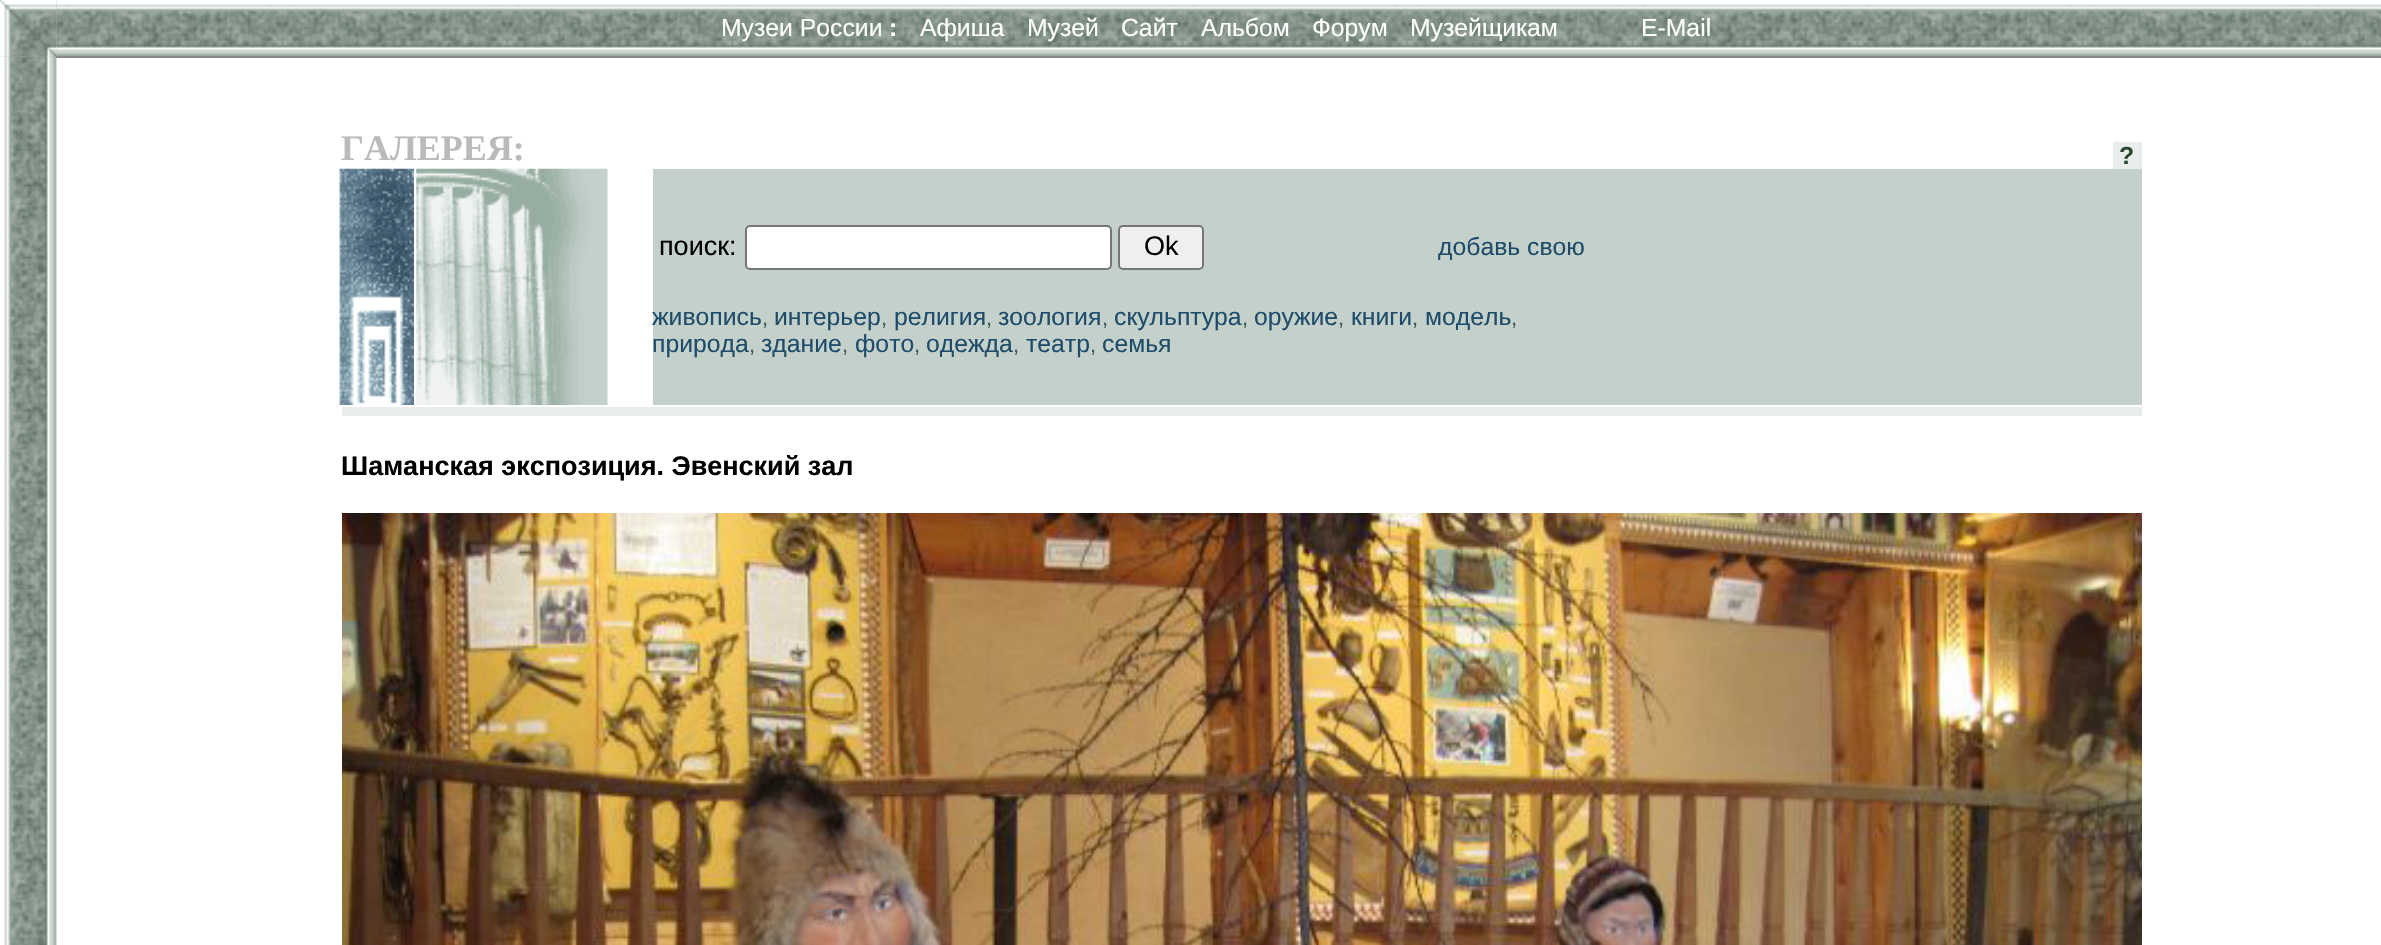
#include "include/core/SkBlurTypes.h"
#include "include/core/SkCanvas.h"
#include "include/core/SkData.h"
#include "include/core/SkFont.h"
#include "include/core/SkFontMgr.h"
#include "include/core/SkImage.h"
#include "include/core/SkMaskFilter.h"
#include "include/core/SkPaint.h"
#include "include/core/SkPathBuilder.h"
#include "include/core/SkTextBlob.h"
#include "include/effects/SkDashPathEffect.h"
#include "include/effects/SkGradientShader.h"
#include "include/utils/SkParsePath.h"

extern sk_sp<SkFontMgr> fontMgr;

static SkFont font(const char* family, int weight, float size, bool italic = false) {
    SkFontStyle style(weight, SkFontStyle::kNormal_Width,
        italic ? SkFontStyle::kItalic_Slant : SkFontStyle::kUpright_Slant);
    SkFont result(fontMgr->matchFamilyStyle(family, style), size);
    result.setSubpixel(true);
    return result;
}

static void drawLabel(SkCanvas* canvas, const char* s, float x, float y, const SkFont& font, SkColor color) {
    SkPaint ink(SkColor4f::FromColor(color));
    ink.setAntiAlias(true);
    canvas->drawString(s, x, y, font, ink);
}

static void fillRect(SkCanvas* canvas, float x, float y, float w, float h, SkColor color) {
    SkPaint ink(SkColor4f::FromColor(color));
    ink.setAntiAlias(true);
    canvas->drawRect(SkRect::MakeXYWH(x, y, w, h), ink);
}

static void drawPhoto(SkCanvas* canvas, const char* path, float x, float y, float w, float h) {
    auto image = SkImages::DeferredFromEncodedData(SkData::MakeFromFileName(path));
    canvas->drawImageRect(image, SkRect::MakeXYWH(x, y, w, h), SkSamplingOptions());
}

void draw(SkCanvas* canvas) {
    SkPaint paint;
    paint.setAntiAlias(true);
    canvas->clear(0xFFFFFFFF);
    drawPhoto(canvas, "assets/img1.png", 4, 0, 53, 945);
    drawPhoto(canvas, "assets/img2.png", 0, 0, 57, 57);
    drawPhoto(canvas, "assets/img3.png", 56, 0, 2325, 56);
    SkFont font1 = font("Liberation Sans", 400, 24.75f);
    drawLabel(canvas, "Музеи России", 721, 36, font1, 0xFFFFFFFF);
    SkFont font2 = font("Liberation Sans", 700, 24.75f);
    drawLabel(canvas, ":", 889, 36, font2, 0xFFFFFFFF);
    drawLabel(canvas, "Афиша", 920, 36, font1, 0xFFFFFFFF);
    drawLabel(canvas, "Музей", 1027, 36, font1, 0xFFFFFFFF);
    drawLabel(canvas, "Сайт", 1121, 36, font1, 0xFFFFFFFF);
    drawLabel(canvas, "Альбом", 1201, 36, font1, 0xFFFFFFFF);
    drawLabel(canvas, "Форум", 1312, 36, font1, 0xFFFFFFFF);
    drawLabel(canvas, "Музейщикам", 1410, 36, font1, 0xFFFFFFFF);
    drawLabel(canvas, "E-Mail", 1641, 36, font1, 0xFFFFFFFF);
    fillRect(canvas, 56, 56, 2325, 2, 0xFF888888);
    SkFont font3 = font("Liberation Serif", 700, 36);
    drawLabel(canvas, "ГАЛЕРЕЯ:", 341, 160, font3, 0xFFBABABA);
    fillRect(canvas, 2113, 142, 29, 27, 0xFFE9EDEB);
    drawLabel(canvas, "?", 2119, 164, font2, 0xFF2A4931);
    drawPhoto(canvas, "assets/img4.png", 339, 168, 75, 237);
    drawPhoto(canvas, "assets/img5.png", 416, 168, 192, 237);
    fillRect(canvas, 653, 169, 1489, 236, 0xFFC4D0CA);
    SkFont font4 = font("Liberation Sans", 400, 27);
    drawLabel(canvas, "поиск:", 659, 255, font4, 0xFF000000);
    paint.setColor(0xFFFFFFFF);
    canvas->drawRoundRect(SkRect::MakeXYWH(746, 226, 365, 43), 4, 4, paint);
    paint.setStroke(true);
    paint.setStrokeWidth(2);
    paint.setColor(0xFF767676);
    canvas->drawRoundRect(SkRect::MakeXYWH(746, 226, 365, 43), 4, 4, paint);
    paint.setStroke(false);
    paint.setColor(0xFFEFEFEF);
    canvas->drawRoundRect(SkRect::MakeXYWH(1119, 226, 84, 43), 4, 4, paint);
    paint.setStroke(true);
    paint.setColor(0xFF767676);
    canvas->drawRoundRect(SkRect::MakeXYWH(1119, 226, 84, 43), 4, 4, paint);
    drawLabel(canvas, "Ok", 1144, 255, font4, 0xFF000000);
    drawLabel(canvas, "добавь свою", 1438, 255, font1, 0xFF1E4C6A);
    drawLabel(canvas, "живопись", 652, 325, font1, 0xFF1E4C6A);
    SkFont font5 = font("Liberation Sans", 400, 22);
    drawLabel(canvas, ",", 762, 325, font5, 0xFF39595C);
    drawLabel(canvas, "интерьер", 774, 325, font1, 0xFF1E4C6A);
    drawLabel(canvas, ",", 881, 325, font5, 0xFF39595C);
    drawLabel(canvas, "религия", 894, 325, font1, 0xFF1E4C6A);
    drawLabel(canvas, ",", 986, 325, font5, 0xFF39595C);
    drawLabel(canvas, "зоология", 998, 325, font1, 0xFF1E4C6A);
    drawLabel(canvas, ",", 1102, 325, font5, 0xFF39595C);
    drawLabel(canvas, "скульптура", 1114, 325, font1, 0xFF1E4C6A);
    drawLabel(canvas, ",", 1242, 325, font5, 0xFF39595C);
    drawLabel(canvas, "оружие", 1254, 325, font1, 0xFF1E4C6A);
    drawLabel(canvas, ",", 1338, 325, font5, 0xFF39595C);
    drawLabel(canvas, "книги", 1351, 325, font1, 0xFF1E4C6A);
    drawLabel(canvas, ",", 1412, 325, font5, 0xFF39595C);
    drawLabel(canvas, "модель", 1425, 325, font1, 0xFF1E4C6A);
    drawLabel(canvas, ",", 1511, 325, font5, 0xFF39595C);
    drawLabel(canvas, "природа", 652, 352, font1, 0xFF1E4C6A);
    drawLabel(canvas, ",", 749, 352, font5, 0xFF39595C);
    drawLabel(canvas, "здание", 761, 352, font1, 0xFF1E4C6A);
    drawLabel(canvas, ",", 842, 352, font5, 0xFF39595C);
    drawLabel(canvas, "фото", 855, 352, font1, 0xFF1E4C6A);
    drawLabel(canvas, ",", 914, 352, font5, 0xFF39595C);
    drawLabel(canvas, "одежда", 926, 352, font1, 0xFF1E4C6A);
    drawLabel(canvas, ",", 1013, 352, font5, 0xFF39595C);
    drawLabel(canvas, "театр", 1026, 352, font1, 0xFF1E4C6A);
    drawLabel(canvas, ",", 1090, 352, font5, 0xFF39595C);
    drawLabel(canvas, "семья", 1102, 352, font1, 0xFF1E4C6A);
    fillRect(canvas, 342, 407, 1800, 9, 0xFFE9EDEB);
    SkFont font6 = font("Liberation Sans", 700, 27);
    drawLabel(canvas, "Шаманская экспозиция. Эвенский зал", 341, 475, font6, 0xFF000000);
    drawPhoto(canvas, "assets/img6.png", 342, 513, 1800, 432);
}
